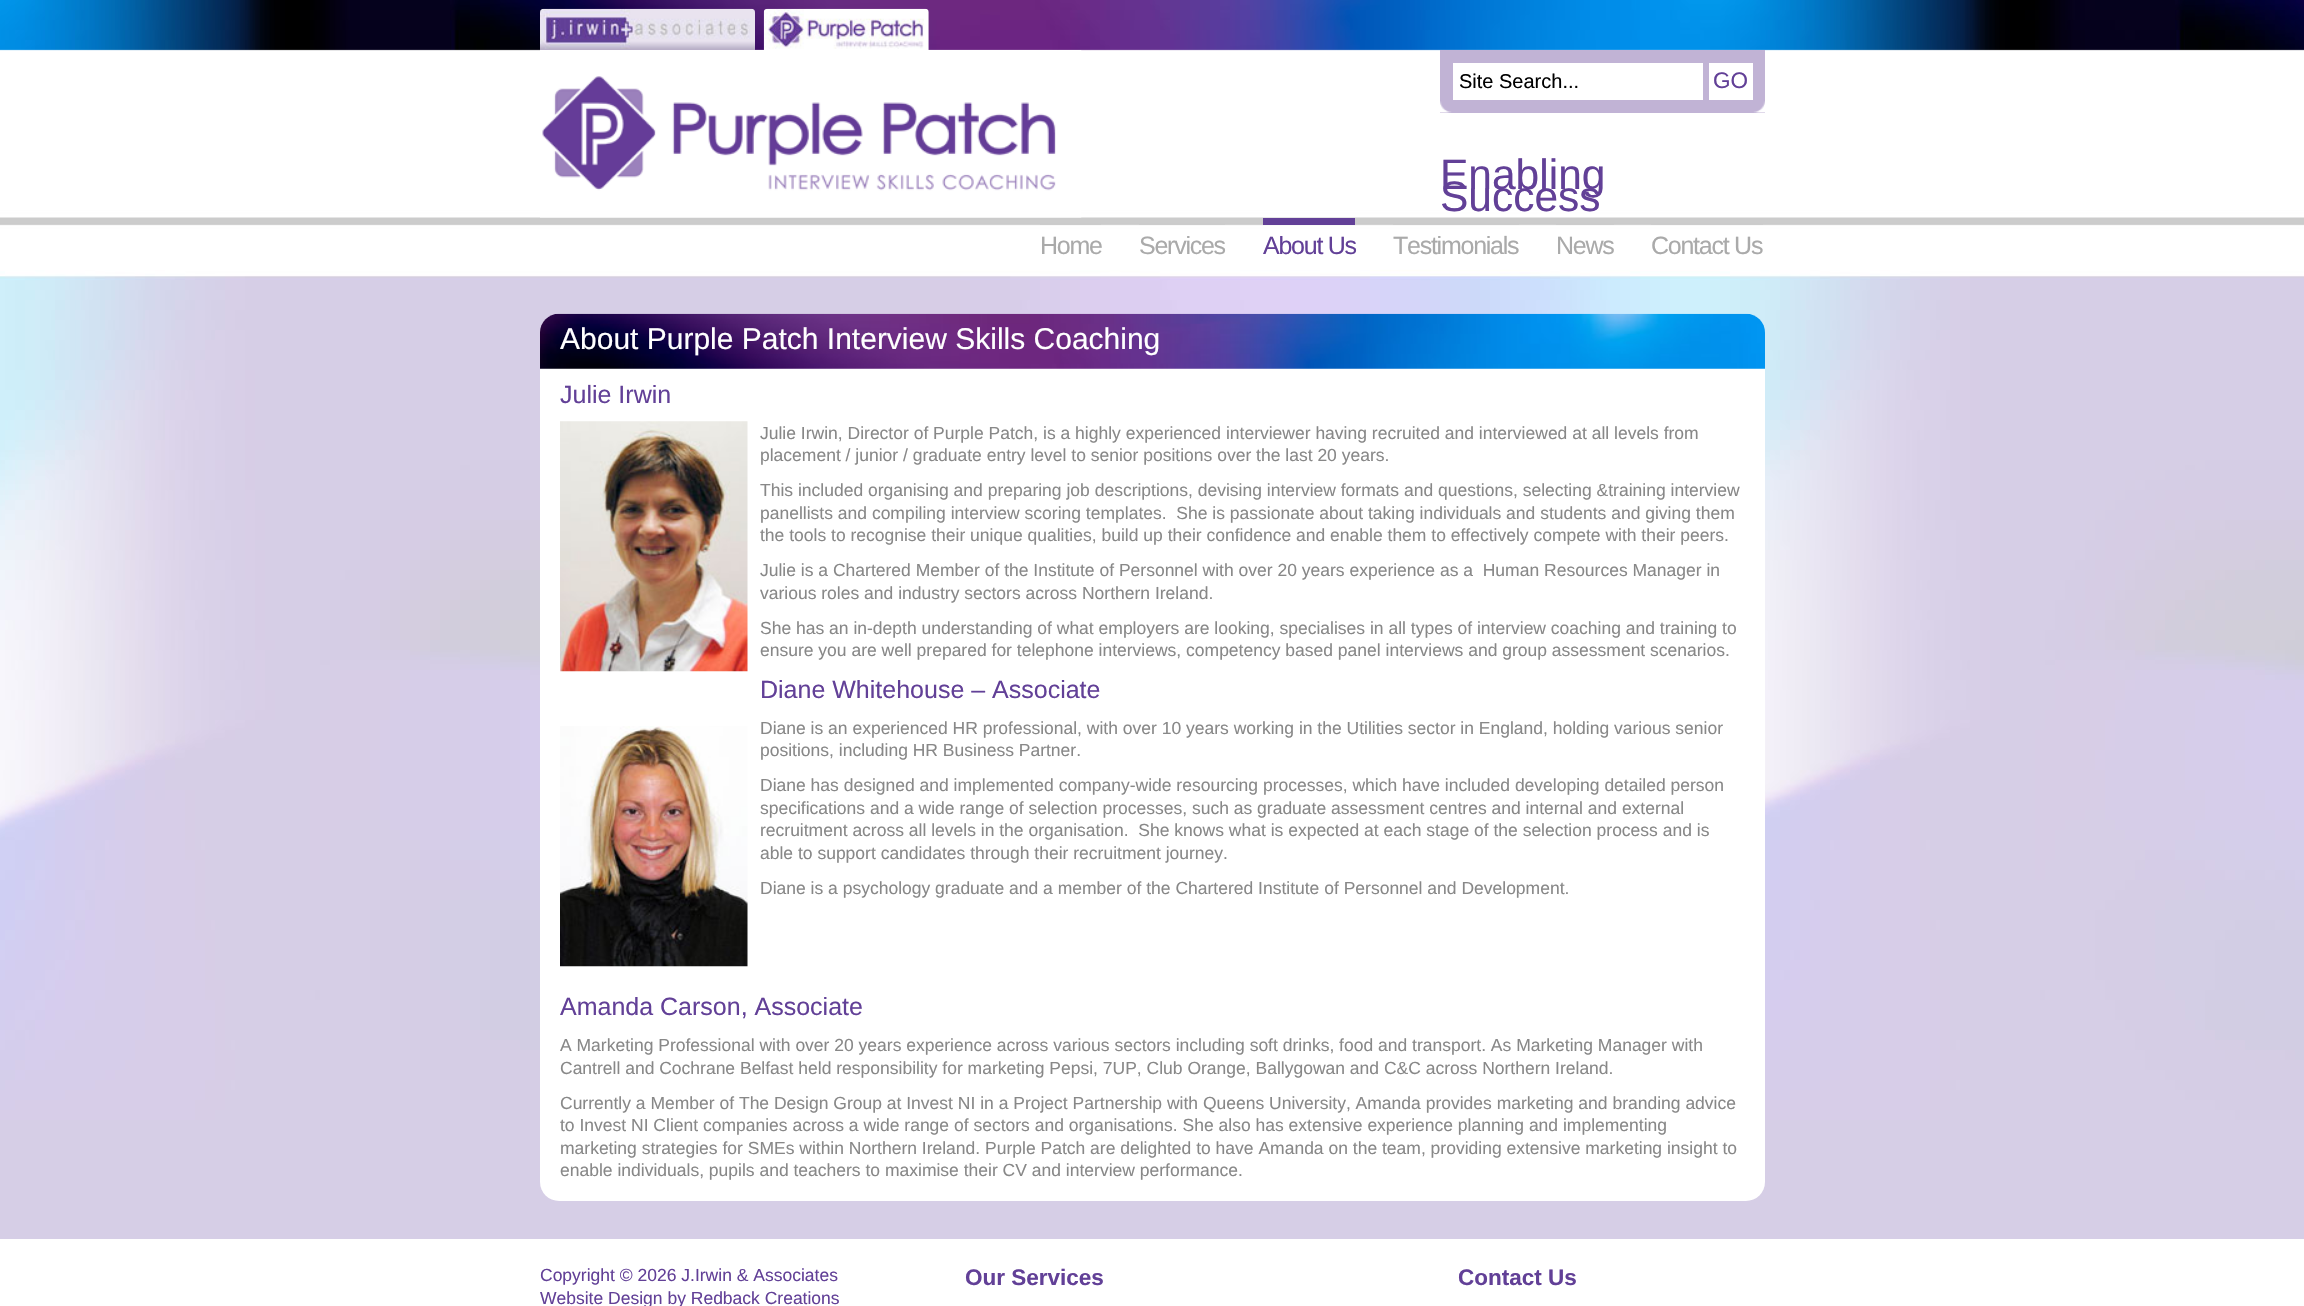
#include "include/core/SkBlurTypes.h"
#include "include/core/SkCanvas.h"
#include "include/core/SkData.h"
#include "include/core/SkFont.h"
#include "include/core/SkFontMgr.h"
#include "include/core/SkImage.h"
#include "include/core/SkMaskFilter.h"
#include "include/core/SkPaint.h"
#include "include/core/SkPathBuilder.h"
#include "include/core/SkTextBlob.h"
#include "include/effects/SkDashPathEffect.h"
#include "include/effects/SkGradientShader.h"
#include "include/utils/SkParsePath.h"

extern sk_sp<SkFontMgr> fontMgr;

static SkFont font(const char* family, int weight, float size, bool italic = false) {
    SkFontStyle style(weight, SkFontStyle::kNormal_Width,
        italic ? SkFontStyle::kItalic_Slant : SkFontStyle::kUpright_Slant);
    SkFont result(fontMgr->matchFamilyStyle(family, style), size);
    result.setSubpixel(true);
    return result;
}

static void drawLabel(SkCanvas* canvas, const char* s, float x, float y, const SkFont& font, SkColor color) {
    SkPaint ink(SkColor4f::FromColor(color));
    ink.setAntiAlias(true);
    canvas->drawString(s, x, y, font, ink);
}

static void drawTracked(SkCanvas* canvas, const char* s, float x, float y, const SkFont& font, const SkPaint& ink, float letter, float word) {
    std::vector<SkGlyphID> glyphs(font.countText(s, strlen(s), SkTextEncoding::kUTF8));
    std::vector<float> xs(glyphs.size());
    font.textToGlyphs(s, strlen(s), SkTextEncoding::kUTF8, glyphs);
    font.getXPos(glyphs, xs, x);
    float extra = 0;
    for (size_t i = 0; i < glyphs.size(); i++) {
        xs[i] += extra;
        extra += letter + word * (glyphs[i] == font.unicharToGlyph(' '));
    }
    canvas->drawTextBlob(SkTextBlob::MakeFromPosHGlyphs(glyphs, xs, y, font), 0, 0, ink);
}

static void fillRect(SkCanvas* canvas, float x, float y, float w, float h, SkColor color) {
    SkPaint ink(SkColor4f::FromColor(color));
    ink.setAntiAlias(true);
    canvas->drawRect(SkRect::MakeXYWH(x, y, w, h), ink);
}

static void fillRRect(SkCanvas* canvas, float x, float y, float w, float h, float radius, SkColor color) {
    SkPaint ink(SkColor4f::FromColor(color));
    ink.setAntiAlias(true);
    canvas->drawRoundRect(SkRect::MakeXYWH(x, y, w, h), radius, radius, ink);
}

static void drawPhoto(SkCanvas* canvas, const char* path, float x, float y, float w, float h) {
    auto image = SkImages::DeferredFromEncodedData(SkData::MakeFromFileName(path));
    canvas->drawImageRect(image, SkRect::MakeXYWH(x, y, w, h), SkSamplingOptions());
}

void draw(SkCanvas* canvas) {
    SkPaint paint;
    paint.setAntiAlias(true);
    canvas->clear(0xFFD6CEE6);
    drawPhoto(canvas, "assets/img1.png", 0, 0, 2304, 1120);
    drawPhoto(canvas, "assets/img2.png", 540, 8, 215, 42);
    drawPhoto(canvas, "assets/img3.png", 763, 8, 166, 42);
    drawPhoto(canvas, "assets/img4.png", 540, 50, 542, 168);
    fillRect(canvas, 1440, 50, 325, 63, 0xFFC1B3D5);
    drawPhoto(canvas, "assets/img5.png", 1440, 101, 325, 12);
    fillRect(canvas, 1453, 63, 250, 37, 0xFFFFFFFF);
    SkFont font1 = font("Liberation Sans", 400, 20);
    drawLabel(canvas, "Site Search...", 1459, 88, font1, 0xFF000000);
    fillRect(canvas, 1709, 63, 44, 37, 0xFFFFFFFF);
    SkFont font2 = font("Liberation Sans", 400, 22.5f);
    drawLabel(canvas, "GO", 1713, 88, font2, 0xFF624097);
    SkFont font3 = font("Liberation Sans", 400, 42.5f);
    drawLabel(canvas, "Enabling", 1440, 189, font3, 0xFF624097);
    drawLabel(canvas, "Success", 1440, 211, font3, 0xFF624097);
    fillRect(canvas, 1040, 224, 61, 1, 0xFFCCCCCC);
    SkFont font4 = font("Liberation Sans", 400, 25);
    paint.setColor(0xFFAAAAAA);
    drawTracked(canvas, "Home", 1040, 254, font4, paint, -1.25f, 0);
    fillRect(canvas, 1139, 224, 86, 1, 0xFFCCCCCC);
    drawTracked(canvas, "Services", 1139, 254, font4, paint, -1.25f, 0);
    fillRect(canvas, 1263, 218, 92, 7, 0xFF624097);
    paint.setColor(0xFF624097);
    drawTracked(canvas, "About Us", 1263, 254, font4, paint, -1.25f, 0);
    fillRect(canvas, 1393, 224, 126, 1, 0xFFCCCCCC);
    paint.setColor(0xFFAAAAAA);
    drawTracked(canvas, "Testimonials", 1393, 254, font4, paint, -1.25f, 0);
    fillRect(canvas, 1556, 224, 58, 1, 0xFFCCCCCC);
    drawTracked(canvas, "News", 1556, 254, font4, paint, -1.25f, 0);
    fillRect(canvas, 1651, 224, 112, 1, 0xFFCCCCCC);
    drawTracked(canvas, "Contact Us", 1651, 254, font4, paint, -1.25f, 0);
    fillRRect(canvas, 540, 314, 1225, 887, 19, 0xFFFFFFFF);
    drawPhoto(canvas, "assets/img6.png", 540, 313, 1225, 56);
    SkFont font5 = font("Liberation Sans", 400, 30);
    drawLabel(canvas, "About Purple Patch Interview Skills Coaching", 560, 349, font5, 0xFFFFFFFF);
    drawLabel(canvas, "Julie Irwin", 560, 403, font4, 0xFF624097);
    drawPhoto(canvas, "assets/img7.png", 560, 421, 188, 251);
    SkFont font6 = font("Liberation Sans", 400, 17.5f);
    drawLabel(canvas, "Julie Irwin, Director of Purple Patch, is a highly experienced interviewer having recruited and interviewed at all levels from", 760, 439, font6, 0xFF888888);
    drawLabel(canvas, "placement / junior / graduate entry level to senior positions over the last 20 years.", 760, 461, font6, 0xFF888888);
    drawLabel(canvas, "This included organising and preparing job descriptions, devising interview formats and questions, selecting &training interview", 760, 496, font6, 0xFF888888);
    drawLabel(canvas, "panellists and compiling interview scoring templates.  She is passionate about taking individuals and students and giving them", 760, 519, font6, 0xFF888888);
    drawLabel(canvas, "the tools to recognise their unique qualities, build up their confidence and enable them to effectively compete with their peers.", 760, 541, font6, 0xFF888888);
    drawLabel(canvas, "Julie is a Chartered Member of the Institute of Personnel with over 20 years experience as a  Human Resources Manager in", 760, 576, font6, 0xFF888888);
    drawLabel(canvas, "various roles and industry sectors across Northern Ireland.", 760, 599, font6, 0xFF888888);
    drawLabel(canvas, "She has an in-depth understanding of what employers are looking, specialises in all types of interview coaching and training to", 760, 634, font6, 0xFF888888);
    drawLabel(canvas, "ensure you are well prepared for telephone interviews, competency based panel interviews and group assessment scenarios.", 760, 656, font6, 0xFF888888);
    drawLabel(canvas, "Diane Whitehouse – Associate", 760, 698, font4, 0xFF624097);
    drawPhoto(canvas, "assets/img8.png", 560, 726, 188, 241);
    drawLabel(canvas, "Diane is an experienced HR professional, with over 10 years working in the Utilities sector in England, holding various senior", 760, 734, font6, 0xFF888888);
    drawLabel(canvas, "positions, including HR Business Partner.", 760, 756, font6, 0xFF888888);
    drawLabel(canvas, "Diane has designed and implemented company-wide resourcing processes, which have included developing detailed person", 760, 791, font6, 0xFF888888);
    drawLabel(canvas, "specifications and a wide range of selection processes, such as graduate assessment centres and internal and external", 760, 814, font6, 0xFF888888);
    drawLabel(canvas, "recruitment across all levels in the organisation.  She knows what is expected at each stage of the selection process and is", 760, 836, font6, 0xFF888888);
    drawLabel(canvas, "able to support candidates through their recruitment journey.", 760, 859, font6, 0xFF888888);
    drawLabel(canvas, "Diane is a psychology graduate and a member of the Chartered Institute of Personnel and Development.", 760, 894, font6, 0xFF888888);
    drawLabel(canvas, "Amanda Carson, Associate", 560, 1015, font4, 0xFF624097);
    drawLabel(canvas, "A Marketing Professional with over 20 years experience across various sectors including soft drinks, food and transport. As Marketing Manager with", 560, 1051, font6, 0xFF888888);
    drawLabel(canvas, "Cantrell and Cochrane Belfast held responsibility for marketing Pepsi, 7UP, Club Orange, Ballygowan and C&C across Northern Ireland.", 560, 1074, font6, 0xFF888888);
    drawLabel(canvas, "Currently a Member of The Design Group at Invest NI in a Project Partnership with Queens University, Amanda provides marketing and branding advice", 560, 1109, font6, 0xFF888888);
    drawLabel(canvas, "to Invest NI Client companies across a wide range of sectors and organisations. She also has extensive experience planning and implementing", 560, 1131, font6, 0xFF888888);
    drawLabel(canvas, "marketing strategies for SMEs within Northern Ireland. Purple Patch are delighted to have Amanda on the team, providing extensive marketing insight to", 560, 1154, font6, 0xFF888888);
    drawLabel(canvas, "enable individuals, pupils and teachers to maximise their CV and interview performance.", 560, 1176, font6, 0xFF888888);
    fillRect(canvas, 0, 1239, 2304, 67, 0xFFFFFFFF);
    drawLabel(canvas, "Copyright © 2026 J.Irwin & Associates", 540, 1281, font6, 0xFF624097);
    drawLabel(canvas, "Website Design by Redback Creations", 540, 1304, font6, 0xFF624097);
    SkFont font7 = font("Liberation Sans", 700, 22.5f);
    drawLabel(canvas, "Our Services", 965, 1285, font7, 0xFF624097);
    drawLabel(canvas, "Contact Us", 1458, 1285, font7, 0xFF624097);
}
